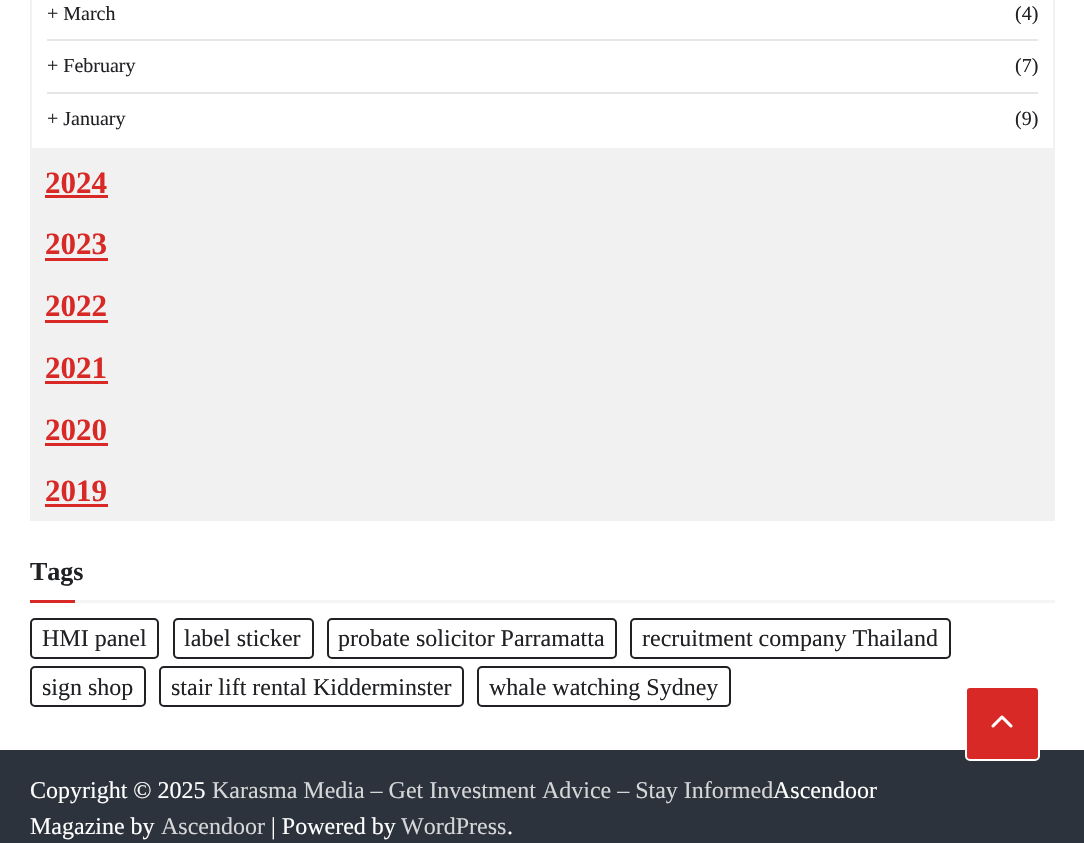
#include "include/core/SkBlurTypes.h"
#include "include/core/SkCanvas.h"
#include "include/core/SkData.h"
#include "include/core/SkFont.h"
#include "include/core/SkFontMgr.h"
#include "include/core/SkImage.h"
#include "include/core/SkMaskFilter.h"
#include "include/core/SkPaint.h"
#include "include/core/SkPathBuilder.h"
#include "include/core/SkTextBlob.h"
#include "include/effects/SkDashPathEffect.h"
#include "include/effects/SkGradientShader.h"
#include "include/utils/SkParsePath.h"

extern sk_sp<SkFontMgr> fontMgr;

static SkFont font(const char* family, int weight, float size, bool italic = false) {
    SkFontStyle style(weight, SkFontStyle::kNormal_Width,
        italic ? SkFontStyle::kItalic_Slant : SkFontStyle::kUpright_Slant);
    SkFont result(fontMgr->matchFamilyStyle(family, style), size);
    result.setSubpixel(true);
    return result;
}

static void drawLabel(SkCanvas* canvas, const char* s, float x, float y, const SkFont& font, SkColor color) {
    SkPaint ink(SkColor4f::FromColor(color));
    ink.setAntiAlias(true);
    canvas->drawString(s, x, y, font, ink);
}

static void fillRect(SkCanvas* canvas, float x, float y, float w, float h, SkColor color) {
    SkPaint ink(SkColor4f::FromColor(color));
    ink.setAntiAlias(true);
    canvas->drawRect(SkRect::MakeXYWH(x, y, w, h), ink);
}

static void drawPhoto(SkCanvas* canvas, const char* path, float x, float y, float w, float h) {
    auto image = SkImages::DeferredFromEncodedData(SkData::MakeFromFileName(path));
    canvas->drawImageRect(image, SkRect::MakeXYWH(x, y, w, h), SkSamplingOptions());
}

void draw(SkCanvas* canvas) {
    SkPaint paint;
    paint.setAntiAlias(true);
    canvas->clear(0xFFFFFFFF);
    paint.setStroke(true);
    paint.setStrokeWidth(2);
    paint.setColor(0xFFF1F1F1);
    canvas->drawRect(SkRect::MakeXYWH(31, -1, 1023, 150), paint);
    fillRect(canvas, 47, 39, 991, 2, 0xFFE6E6E6);
    SkFont font1 = font("Liberation Serif", 400, 20);
    drawLabel(canvas, "+ March", 47, 20, font1, 0xFF202124);
    drawLabel(canvas, "(4)", 1015, 20, font1, 0xFF202124);
    fillRect(canvas, 47, 92, 991, 2, 0xFFE6E6E6);
    drawLabel(canvas, "+ February", 47, 72, font1, 0xFF202124);
    drawLabel(canvas, "(7)", 1015, 72, font1, 0xFF202124);
    drawLabel(canvas, "+ January", 47, 125, font1, 0xFF202124);
    drawLabel(canvas, "(9)", 1015, 125, font1, 0xFF202124);
    fillRect(canvas, 30, 150, 1025, 371, 0xFFF1F1F1);
    SkFont font2 = font("Liberation Serif", 700, 31);
    drawLabel(canvas, "2024", 45, 193, font2, 0xFFD82926);
    fillRect(canvas, 45, 195, 63, 3, 0xFFD82926);
    drawLabel(canvas, "2023", 45, 254, font2, 0xFFD82926);
    fillRect(canvas, 45, 258, 63, 3, 0xFFD82926);
    drawLabel(canvas, "2022", 45, 316, font2, 0xFFD82926);
    fillRect(canvas, 45, 320, 63, 3, 0xFFD82926);
    drawLabel(canvas, "2021", 45, 378, font2, 0xFFD82926);
    fillRect(canvas, 45, 381, 63, 3, 0xFFD82926);
    drawLabel(canvas, "2020", 45, 440, font2, 0xFFD82926);
    fillRect(canvas, 45, 443, 63, 3, 0xFFD82926);
    drawLabel(canvas, "2019", 45, 501, font2, 0xFFD82926);
    fillRect(canvas, 45, 504, 63, 3, 0xFFD82926);
    SkFont font3 = font("Liberation Serif", 700, 26);
    drawLabel(canvas, "Tags", 30, 580, font3, 0xFF202124);
    fillRect(canvas, 30, 600, 45, 3, 0xFFD82926);
    fillRect(canvas, 75, 600, 980, 3, 0xFFF5F5F5);
    paint.setColor(0xFF202124);
    canvas->drawRoundRect(SkRect::MakeXYWH(31, 619, 127, 39), 4, 4, paint);
    SkFont font4 = font("Liberation Serif", 400, 24);
    drawLabel(canvas, "HMI panel", 42, 646, font4, 0xFF202124);
    canvas->drawRoundRect(SkRect::MakeXYWH(174, 619, 139, 39), 4, 4, paint);
    drawLabel(canvas, "label sticker", 184, 646, font4, 0xFF202124);
    canvas->drawRoundRect(SkRect::MakeXYWH(328, 619, 288, 39), 4, 4, paint);
    drawLabel(canvas, "probate solicitor Parramatta", 338, 646, font4, 0xFF202124);
    canvas->drawRoundRect(SkRect::MakeXYWH(631, 619, 319, 39), 4, 4, paint);
    drawLabel(canvas, "recruitment company Thailand", 642, 646, font4, 0xFF202124);
    canvas->drawRoundRect(SkRect::MakeXYWH(31, 667, 114, 39), 4, 4, paint);
    drawLabel(canvas, "sign shop", 42, 695, font4, 0xFF202124);
    canvas->drawRoundRect(SkRect::MakeXYWH(160, 667, 303, 39), 4, 4, paint);
    drawLabel(canvas, "stair lift rental Kidderminster", 171, 695, font4, 0xFF202124);
    canvas->drawRoundRect(SkRect::MakeXYWH(478, 667, 252, 39), 4, 4, paint);
    drawLabel(canvas, "whale watching Sydney", 489, 695, font4, 0xFF202124);
    fillRect(canvas, 0, 750, 1084, 93, 0xFF2D333C);
    paint.setStroke(false);
    paint.setColor(0xFFD82926);
    canvas->drawRoundRect(SkRect::MakeXYWH(966, 687, 73, 73), 4, 4, paint);
    paint.setStroke(true);
    paint.setColor(0xFFFFFFFF);
    canvas->drawRoundRect(SkRect::MakeXYWH(966, 687, 73, 73), 4, 4, paint);
    drawPhoto(canvas, "assets/img1.png", 991, 715, 22, 13);
    drawLabel(canvas, "Copyright © 2025", 30, 798, font4, 0xFFFFFFFF);
    drawLabel(canvas, "Ascendoor", 773, 798, font4, 0xFFFFFFFF);
    drawLabel(canvas, "Karasma Media – Get Investment Advice – Stay Informed", 212, 798, font4, 0xFFD5D6D8);
    drawLabel(canvas, "Magazine by", 30, 834, font4, 0xFFFFFFFF);
    drawLabel(canvas, "Ascendoor", 161, 834, font4, 0xFFD5D6D8);
    drawLabel(canvas, "| Powered by", 271, 834, font4, 0xFFFFFFFF);
    drawLabel(canvas, "WordPress", 401, 834, font4, 0xFFD5D6D8);
    drawLabel(canvas, ".", 507, 834, font4, 0xFFFFFFFF);
}
